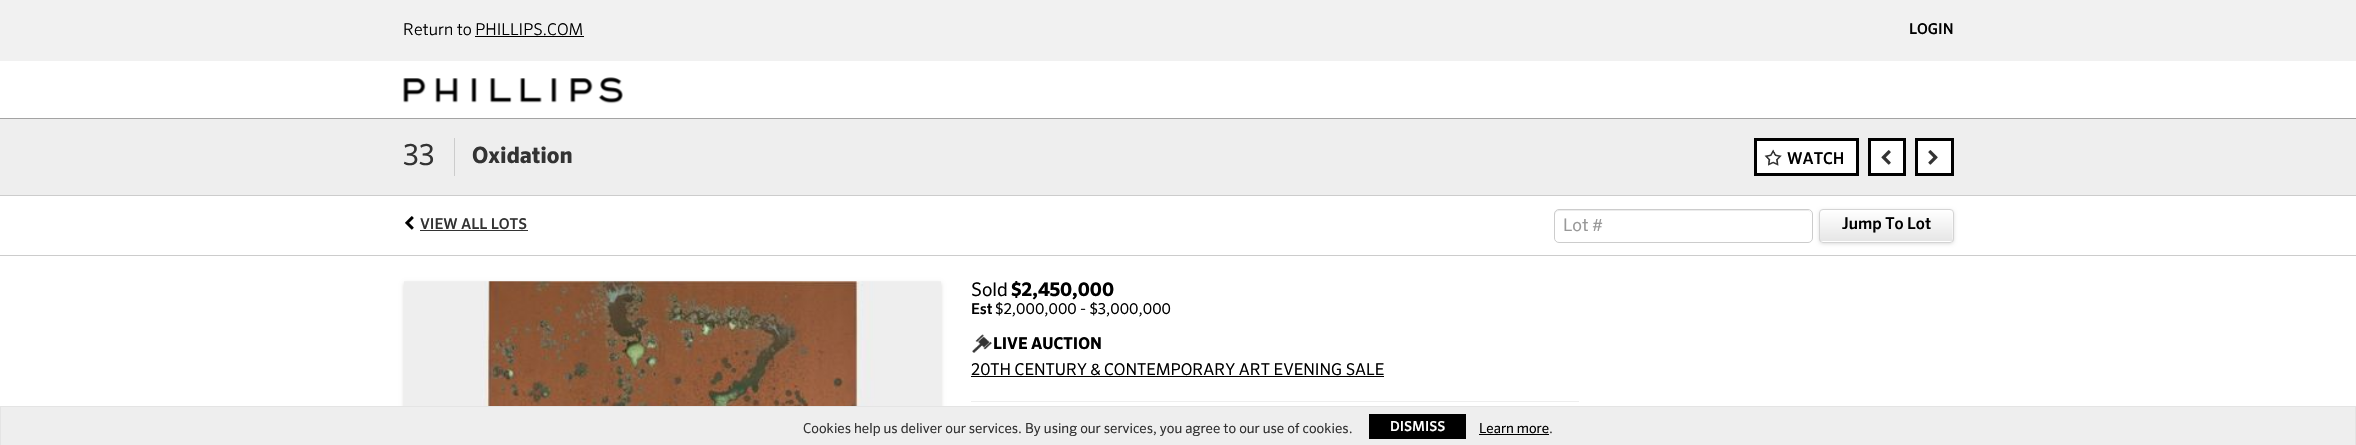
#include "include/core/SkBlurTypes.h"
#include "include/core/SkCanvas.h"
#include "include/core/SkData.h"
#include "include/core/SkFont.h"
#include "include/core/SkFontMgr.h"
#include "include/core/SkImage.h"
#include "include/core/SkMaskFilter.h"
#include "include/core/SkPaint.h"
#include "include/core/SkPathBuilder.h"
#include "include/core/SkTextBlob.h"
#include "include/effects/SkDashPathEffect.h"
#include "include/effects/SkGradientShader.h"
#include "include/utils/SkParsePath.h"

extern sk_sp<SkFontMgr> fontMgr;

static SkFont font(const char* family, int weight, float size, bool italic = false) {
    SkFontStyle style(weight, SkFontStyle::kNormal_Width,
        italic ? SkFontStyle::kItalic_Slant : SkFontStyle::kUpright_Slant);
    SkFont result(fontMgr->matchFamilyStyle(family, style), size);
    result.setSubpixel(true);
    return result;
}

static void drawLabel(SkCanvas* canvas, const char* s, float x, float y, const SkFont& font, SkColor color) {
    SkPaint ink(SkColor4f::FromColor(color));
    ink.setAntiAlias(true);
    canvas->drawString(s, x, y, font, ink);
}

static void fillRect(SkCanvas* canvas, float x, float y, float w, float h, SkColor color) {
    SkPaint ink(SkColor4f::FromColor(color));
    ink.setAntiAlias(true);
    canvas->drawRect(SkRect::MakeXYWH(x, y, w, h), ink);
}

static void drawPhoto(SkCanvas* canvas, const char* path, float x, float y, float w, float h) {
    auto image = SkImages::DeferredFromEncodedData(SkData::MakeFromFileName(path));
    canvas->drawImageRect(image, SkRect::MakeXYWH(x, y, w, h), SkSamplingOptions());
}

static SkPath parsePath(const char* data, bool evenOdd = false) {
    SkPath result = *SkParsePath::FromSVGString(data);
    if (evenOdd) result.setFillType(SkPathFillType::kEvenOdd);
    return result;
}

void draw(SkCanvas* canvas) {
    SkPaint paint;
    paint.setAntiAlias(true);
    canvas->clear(0xFFFFFFFF);
    fillRect(canvas, 0, 118, 2356, 1, 0xFFA3A3A3);
    fillRect(canvas, 0, 0, 2356, 61, 0xFFF1F1F1);
    SkFont font1 = font("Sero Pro", 300, 16.25f);
    drawLabel(canvas, "Return to PHILLIPS.COM", 403, 35, font1, 0xFF000000);
    fillRect(canvas, 475, 36, 109, 1, 0xFF000000);
    SkFont font2 = font("Sero Pro", 500, 15);
    drawLabel(canvas, "LOGIN", 1909, 34, font2, 0xFF000000);
    drawPhoto(canvas, "assets/img1.png", 403, 77, 220, 27);
    fillRect(canvas, 0, 119, 2356, 76, 0xFFEEEEEE);
    fillRect(canvas, 0, 195, 2356, 1, 0xFFCCCCCC);
    SkFont font3 = font("Sero Pro", 400, 29);
    drawLabel(canvas, "33", 403, 165, font3, 0xFF333333);
    fillRect(canvas, 454, 138, 1, 38, 0xFFCCCCCC);
    SkFont font4 = font("Sero Pro", 700, 22.5f);
    drawLabel(canvas, "Oxidation", 472, 163, font4, 0xFF333333);
    paint.setColor(0xFFFFFFFF);
    canvas->drawRect(SkRect::MakeXYWH(1755.5f, 139.5f, 102, 35), paint);
    paint.setStroke(true);
    paint.setStrokeWidth(3);
    paint.setColor(0xFF000000);
    canvas->drawRect(SkRect::MakeXYWH(1755.5f, 139.5f, 102, 35), paint);
    drawPhoto(canvas, "assets/img2.png", 1764, 149, 18, 17);
    SkFont font5 = font("Sero Pro", 500, 16.25f);
    drawLabel(canvas, "WATCH", 1787, 164, font5, 0xFF000000);
    paint.setStroke(false);
    paint.setColor(0xFFFFFFFF);
    canvas->drawRect(SkRect::MakeXYWH(1869.5f, 139.5f, 35, 35), paint);
    paint.setStroke(true);
    paint.setColor(0xFF000000);
    canvas->drawRect(SkRect::MakeXYWH(1869.5f, 139.5f, 35, 35), paint);
    drawPhoto(canvas, "assets/img3.png", 1881, 150, 10, 15);
    paint.setStroke(false);
    paint.setColor(0xFFFFFFFF);
    canvas->drawRect(SkRect::MakeXYWH(1916.5f, 139.5f, 36, 35), paint);
    paint.setStroke(true);
    paint.setColor(0xFF000000);
    canvas->drawRect(SkRect::MakeXYWH(1916.5f, 139.5f, 36, 35), paint);
    drawPhoto(canvas, "assets/img4.png", 1928, 150, 10, 15);
    drawPhoto(canvas, "assets/img5.png", 405, 216, 9, 14);
    drawLabel(canvas, "VIEW ALL LOTS", 420, 229, font2, 0xFF333333);
    fillRect(canvas, 420, 230, 108, 1, 0xFF333333);
    paint.setStroke(false);
    paint.setColor(0xFFECECEC);
    canvas->drawPath(parsePath("M1559 211H1808C1810 211 1811 213 1811 215V214C1811 212 1809 210 1807 210H1559C1557 210 1555 212 1555 214V215C1555 213 1557 211 1559 211Z"), paint);
    paint.setStroke(true);
    paint.setStrokeWidth(1);
    paint.setColor(0xFFCCCCCC);
    canvas->drawRoundRect(SkRect::MakeXYWH(1554.5f, 209.5f, 258, 33), 4.5f, 4.5f, paint);
    SkFont font6 = font("Sero Pro", 400, 17.5f);
    drawLabel(canvas, "Lot #", 1563, 231, font6, 0xFF999999);
    paint.setStroke(false);
    paint.setColor(0x33000000);
    paint.setMaskFilter(SkMaskFilter::MakeBlur(kNormal_SkBlurStyle, 2));
    canvas->drawRoundRect(SkRect::MakeXYWH(1820, 211, 133, 32), 2.5f, 2.5f, paint);
    paint.setMaskFilter(nullptr);
    canvas->save();
    canvas->clipPath(parsePath("M1823 209H1950C1952 209 1954 211 1954 213V239C1954 241 1952 243 1950 243H1823C1821 243 1819 241 1819 239V213C1819 211 1821 209 1823 209Z"), true);
    {
        const SkColor colors[] = {0xFFFFFFFF, 0xFFE6E6E6};
        const float stops[] = {0, 1};
        const SkPoint ends[] = {{1886, 210}, {1886, 241}};
        paint.setShader(SkGradientShader::MakeLinear(ends, colors, stops, 2, SkTileMode::kClamp));
        paint.setAlpha(255);
    }
    canvas->drawRect(SkRect::MakeXYWH(1819, 210, 135, 31), paint);
    {
        const SkColor colors[] = {0xFFFFFFFF, 0xFFE6E6E6};
        const float stops[] = {0, 1};
        const SkPoint ends[] = {{1886, 241}, {1886, 273}};
        paint.setShader(SkGradientShader::MakeLinear(ends, colors, stops, 2, SkTileMode::kClamp));
        paint.setAlpha(255);
    }
    canvas->drawRect(SkRect::MakeXYWH(1819, 241, 135, 2), paint);
    canvas->restore();
    paint.setShader(nullptr);
    paint.setColor(0x66FFFFFF);
    canvas->drawPath(parsePath("M1822 211H1950C1953 211 1952 221 1952 223V241C1953 240 1953 239 1953 238V212C1953 211 1952 210 1950 210H1822C1821 210 1820 211 1820 212V214C1820 212 1821 211 1822 211Z"), paint);
    paint.setStroke(true);
    paint.setColor(0xFFD4D4D4);
    canvas->drawRoundRect(SkRect::MakeXYWH(1819.5f, 209.5f, 134, 33), 3.5f, 3.5f, paint);
    drawLabel(canvas, "Jump To Lot", 1842, 229, font5, 0xFF000000);
    fillRect(canvas, 0, 255, 2356, 1, 0xFFCCCCCC);
    paint.setStroke(false);
    paint.setColor(0xFFDAD9D7);
    paint.setMaskFilter(SkMaskFilter::MakeBlur(kNormal_SkBlurStyle, 2));
    canvas->drawRect(SkRect::MakeXYWH(404, 283, 537, 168), paint);
    paint.setMaskFilter(nullptr);
    drawPhoto(canvas, "assets/img6.png", 404, 281, 537, 125);
    SkFont font7 = font("Sero Pro", 400, 18.75f);
    drawLabel(canvas, "Sold", 971, 296, font7, 0xFF000000);
    SkFont font8 = font("Sero Pro", 700, 18.75f);
    drawLabel(canvas, "$2,450,000", 1011, 296, font8, 0xFF000000);
    drawLabel(canvas, "Est", 971, 314, font2, 0xFF000000);
    SkFont font9 = font("Sero Pro", 400, 15);
    drawLabel(canvas, "$2,000,000 - $3,000,000", 995, 314, font9, 0xFF000000);
    drawPhoto(canvas, "assets/img7.png", 972, 334, 20, 19);
    SkFont font10 = font("Sero Pro", 700, 16.25f);
    drawLabel(canvas, "LIVE AUCTION", 993, 349, font10, 0xFF000000);
    SkFont font11 = font("Sero Pro", 400, 16.25f);
    drawLabel(canvas, "20TH CENTURY & CONTEMPORARY ART EVENING SALE", 971, 375, font11, 0xFF000000);
    fillRect(canvas, 971, 376, 413, 1, 0xFF000000);
    fillRect(canvas, 971, 401, 608, 1, 0xFFEEEEEE);
    fillRect(canvas, 1, 407, 2354, 38, 0xFFEEEEEE);
    fillRect(canvas, 0, 406, 2356, 1, 0xFFE4E4E4);
    fillRect(canvas, 2355, 406, 1, 39, 0xFFE4E4E4);
    fillRect(canvas, 0, 406, 1, 39, 0xFFE4E4E4);
    SkFont font12 = font("Sero Pro", 400, 13.75f);
    drawLabel(canvas, "Cookies help us deliver our services. By using our services, you agree to our use of cookies.", 803, 433, font12, 0xFF333333);
    fillRect(canvas, 1369, 414, 97, 25, 0xFF000000);
    SkFont font13 = font("Sero Pro", 500, 13.75f);
    drawLabel(canvas, "DISMISS", 1390, 431, font13, 0xFFFFFFFF);
    drawLabel(canvas, "Learn more", 1479, 433, font12, 0xFF000000);
    fillRect(canvas, 1479, 434, 70, 1, 0xFF000000);
    drawLabel(canvas, ".", 1549, 433, font12, 0xFF333333);
}
